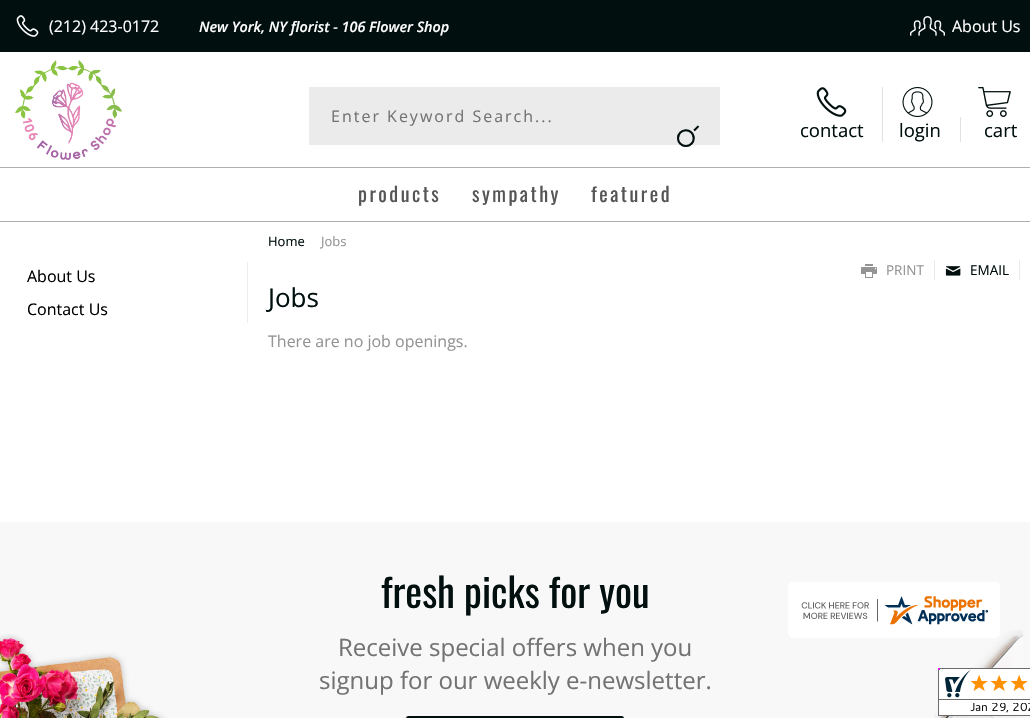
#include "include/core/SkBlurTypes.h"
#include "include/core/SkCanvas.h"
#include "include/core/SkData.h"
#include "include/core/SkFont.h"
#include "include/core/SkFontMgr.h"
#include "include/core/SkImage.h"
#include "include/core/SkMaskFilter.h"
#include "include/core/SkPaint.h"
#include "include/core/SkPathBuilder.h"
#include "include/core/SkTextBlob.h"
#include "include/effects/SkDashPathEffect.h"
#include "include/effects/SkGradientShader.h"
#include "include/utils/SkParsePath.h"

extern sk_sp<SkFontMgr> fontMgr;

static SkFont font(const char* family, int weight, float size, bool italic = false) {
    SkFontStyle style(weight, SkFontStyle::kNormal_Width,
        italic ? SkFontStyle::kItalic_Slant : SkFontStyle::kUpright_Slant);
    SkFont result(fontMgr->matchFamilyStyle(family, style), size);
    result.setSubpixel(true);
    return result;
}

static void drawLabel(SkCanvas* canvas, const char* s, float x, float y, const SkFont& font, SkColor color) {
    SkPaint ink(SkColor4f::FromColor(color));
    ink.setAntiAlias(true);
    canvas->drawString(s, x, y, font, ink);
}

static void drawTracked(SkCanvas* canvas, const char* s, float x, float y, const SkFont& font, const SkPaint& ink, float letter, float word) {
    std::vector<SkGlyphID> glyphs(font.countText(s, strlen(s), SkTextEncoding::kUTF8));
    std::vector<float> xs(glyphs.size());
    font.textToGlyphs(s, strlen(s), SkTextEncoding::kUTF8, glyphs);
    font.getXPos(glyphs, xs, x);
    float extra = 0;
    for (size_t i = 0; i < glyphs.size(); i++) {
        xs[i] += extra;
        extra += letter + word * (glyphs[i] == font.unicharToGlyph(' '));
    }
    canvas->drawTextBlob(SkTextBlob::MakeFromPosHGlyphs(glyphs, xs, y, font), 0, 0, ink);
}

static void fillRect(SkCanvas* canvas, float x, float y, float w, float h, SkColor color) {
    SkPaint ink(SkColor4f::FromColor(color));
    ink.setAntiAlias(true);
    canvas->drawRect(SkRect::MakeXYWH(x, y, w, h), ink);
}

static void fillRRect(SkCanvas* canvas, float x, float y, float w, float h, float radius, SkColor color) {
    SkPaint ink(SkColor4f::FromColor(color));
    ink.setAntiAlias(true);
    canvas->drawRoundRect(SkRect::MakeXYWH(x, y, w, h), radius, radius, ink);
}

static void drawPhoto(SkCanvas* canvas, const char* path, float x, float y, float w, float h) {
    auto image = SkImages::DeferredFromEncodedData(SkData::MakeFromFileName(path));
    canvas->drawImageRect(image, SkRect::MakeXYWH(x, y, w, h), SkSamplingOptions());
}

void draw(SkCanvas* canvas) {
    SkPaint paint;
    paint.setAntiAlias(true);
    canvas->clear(0xFFFFFFFF);
    fillRect(canvas, 0, 0, 1030, 52, 0xFF010F0E);
    drawPhoto(canvas, "assets/img1.png", 16, 15, 23, 22);
    SkFont font1 = font("Open Sans", 400, 16);
    drawLabel(canvas, "(212) 423-0172", 49, 32, font1, 0xFFFFFFFF);
    SkFont font2 = font("Open Sans", 600, 14.4f, true);
    drawLabel(canvas, "New York, NY florist - 106 Flower Shop", 199, 32, font2, 0xFFFFFFFF);
    drawPhoto(canvas, "assets/img2.png", 910, 16, 35, 20);
    drawLabel(canvas, "About Us", 952, 32, font1, 0xFFFFFFFF);
    drawPhoto(canvas, "assets/img3.png", 15, 60, 107, 100);
    fillRect(canvas, 309, 87, 411, 58, 0xFFEBEBEB);
    paint.setColor(0xFF737373);
    drawTracked(canvas, "Enter Keyword Search...", 331, 122, font1, paint, 2, 0);
    SkFont font3 = font("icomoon", 400, 24);
    canvas->save();
    canvas->rotate(180, 700, 126);
    drawLabel(canvas, "'", 700, 126, font3, 0xFF010F0E);
    canvas->restore();
    drawPhoto(canvas, "assets/img4.png", 816, 87, 31, 30);
    SkFont font4 = font("Open Sans", 400, 18.5f);
    drawLabel(canvas, "contact", 800, 137, font4, 0xFF010F0E);
    fillRect(canvas, 882, 87, 1, 55, 0xFFE1E1E1);
    fillRect(canvas, 960, 117, 1, 25, 0xFFE1E1E1);
    drawPhoto(canvas, "assets/img5.png", 902, 87, 31, 30);
    drawLabel(canvas, "login", 899, 137, font4, 0xFF010F0E);
    drawPhoto(canvas, "assets/img6.png", 978, 87, 33, 30);
    drawLabel(canvas, "cart", 984, 137, font4, 0xFF010F0E);
    fillRect(canvas, 0, 167, 1030, 1, 0xFFAFAFAF);
    fillRect(canvas, 0, 221, 1030, 1, 0xFFAFAFAF);
    SkFont font5 = font("Oswald", 400, 20);
    paint.setColor(0xFF555555);
    drawTracked(canvas, "products", 358, 202, font5, paint, 2.5f, 0);
    drawTracked(canvas, "sympathy", 472, 202, font5, paint, 2.5f, 0);
    drawTracked(canvas, "featured", 591, 202, font5, paint, 2.5f, 0);
    fillRect(canvas, 247, 262, 1, 61, 0xFFEEEEEE);
    drawLabel(canvas, "About Us", 27, 282, font1, 0xFF000000);
    drawLabel(canvas, "Contact Us", 27, 315, font1, 0xFF000000);
    SkFont font6 = font("Open Sans", 400, 13);
    drawLabel(canvas, "Home", 268, 246, font6, 0xFF010F0E);
    drawLabel(canvas, "Jobs", 321, 246, font6, 0xFF949494);
    SkFont font7 = font("icomoon", 400, 16);
    drawLabel(canvas, "4", 861, 278, font7, 0xFF949494);
    SkFont font8 = font("Open Sans", 400, 13.5f);
    drawLabel(canvas, "PRINT", 886, 275, font8, 0xFF949494);
    fillRect(canvas, 1019, 260, 1, 20, 0xFFEAEAEA);
    fillRect(canvas, 934, 260, 1, 20, 0xFFEAEAEA);
    drawLabel(canvas, "<", 945, 278, font7, 0xFF010F0E);
    drawLabel(canvas, "EMAIL", 970, 275, font8, 0xFF010F0E);
    SkFont font9 = font("Open Sans", 400, 26);
    drawLabel(canvas, "Jobs", 268, 307, font9, 0xFF010F0E);
    drawLabel(canvas, "There are no job openings.", 268, 347, font1, 0xFF949494);
    fillRect(canvas, 0, 522, 1030, 196, 0xFFF8F8F8);
    drawPhoto(canvas, "assets/img7.png", 0, 634, 166, 84);
    SkFont font10 = font("Oswald", 400, 40);
    drawLabel(canvas, "fresh picks for you", 381, 608, font10, 0xFF010F0E);
    SkFont font11 = font("Open Sans", 400, 24);
    drawLabel(canvas, "Receive special offers when you", 338, 656, font11, 0xFF737373);
    drawLabel(canvas, "signup for our weekly e-newsletter.", 319, 689, font11, 0xFF737373);
    fillRRect(canvas, 406, 716, 218, 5, 3, 0xFF010F0E);
    drawPhoto(canvas, "assets/img8.png", 934, 630, 89, 88);
    fillRRect(canvas, 788, 582, 212, 56, 5, 0xFFFFFFFF);
    drawPhoto(canvas, "assets/img9.png", 801, 596, 187, 29);
    drawPhoto(canvas, "assets/img10.png", 938, 668, 92, 48);
}
